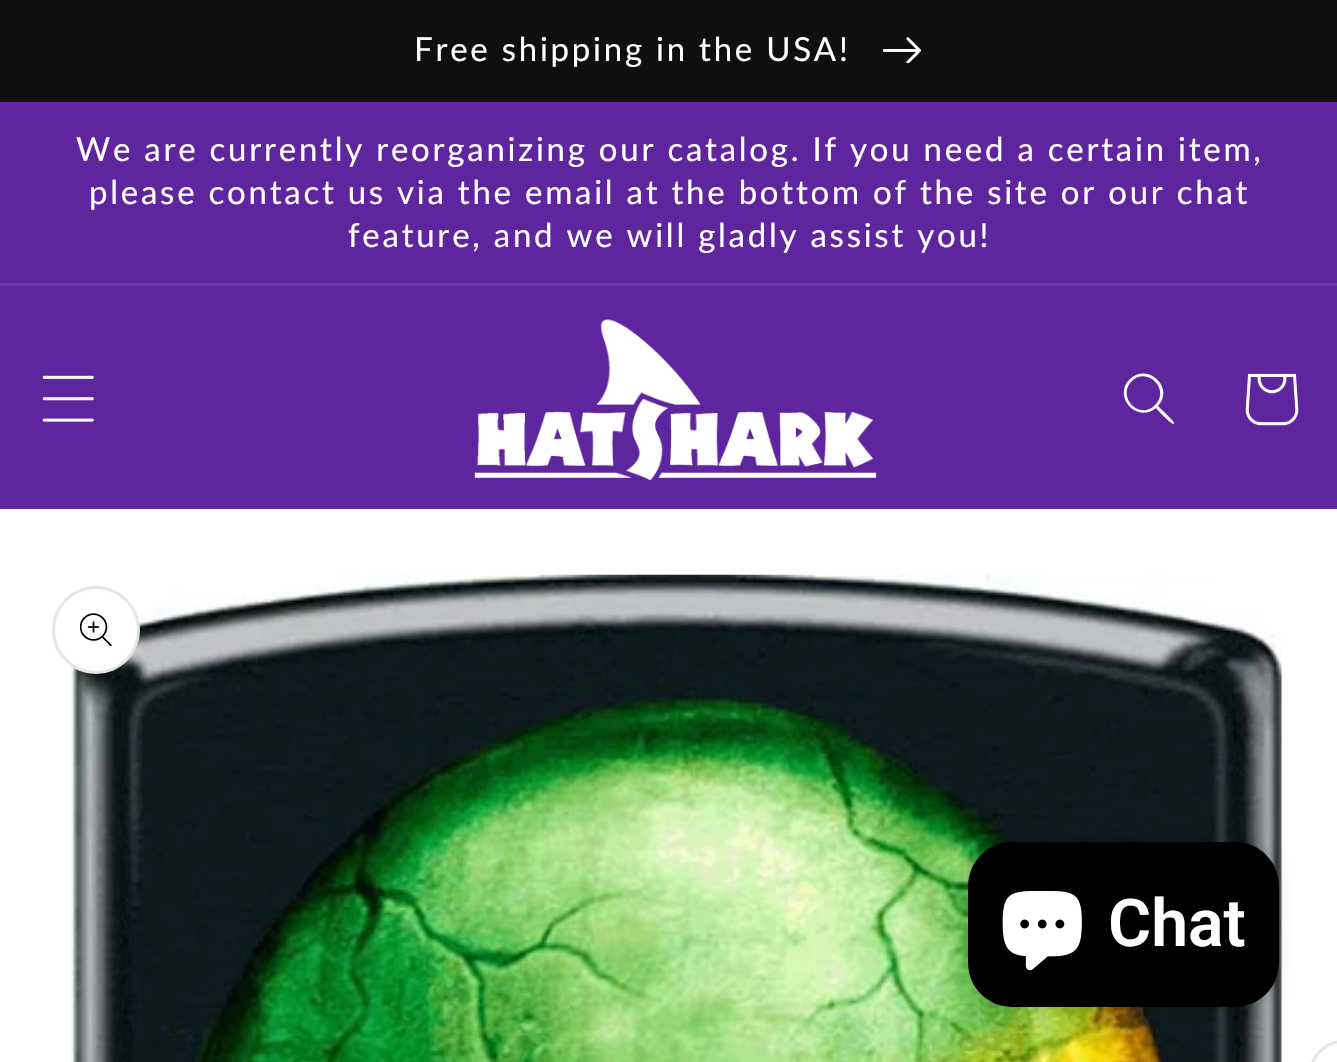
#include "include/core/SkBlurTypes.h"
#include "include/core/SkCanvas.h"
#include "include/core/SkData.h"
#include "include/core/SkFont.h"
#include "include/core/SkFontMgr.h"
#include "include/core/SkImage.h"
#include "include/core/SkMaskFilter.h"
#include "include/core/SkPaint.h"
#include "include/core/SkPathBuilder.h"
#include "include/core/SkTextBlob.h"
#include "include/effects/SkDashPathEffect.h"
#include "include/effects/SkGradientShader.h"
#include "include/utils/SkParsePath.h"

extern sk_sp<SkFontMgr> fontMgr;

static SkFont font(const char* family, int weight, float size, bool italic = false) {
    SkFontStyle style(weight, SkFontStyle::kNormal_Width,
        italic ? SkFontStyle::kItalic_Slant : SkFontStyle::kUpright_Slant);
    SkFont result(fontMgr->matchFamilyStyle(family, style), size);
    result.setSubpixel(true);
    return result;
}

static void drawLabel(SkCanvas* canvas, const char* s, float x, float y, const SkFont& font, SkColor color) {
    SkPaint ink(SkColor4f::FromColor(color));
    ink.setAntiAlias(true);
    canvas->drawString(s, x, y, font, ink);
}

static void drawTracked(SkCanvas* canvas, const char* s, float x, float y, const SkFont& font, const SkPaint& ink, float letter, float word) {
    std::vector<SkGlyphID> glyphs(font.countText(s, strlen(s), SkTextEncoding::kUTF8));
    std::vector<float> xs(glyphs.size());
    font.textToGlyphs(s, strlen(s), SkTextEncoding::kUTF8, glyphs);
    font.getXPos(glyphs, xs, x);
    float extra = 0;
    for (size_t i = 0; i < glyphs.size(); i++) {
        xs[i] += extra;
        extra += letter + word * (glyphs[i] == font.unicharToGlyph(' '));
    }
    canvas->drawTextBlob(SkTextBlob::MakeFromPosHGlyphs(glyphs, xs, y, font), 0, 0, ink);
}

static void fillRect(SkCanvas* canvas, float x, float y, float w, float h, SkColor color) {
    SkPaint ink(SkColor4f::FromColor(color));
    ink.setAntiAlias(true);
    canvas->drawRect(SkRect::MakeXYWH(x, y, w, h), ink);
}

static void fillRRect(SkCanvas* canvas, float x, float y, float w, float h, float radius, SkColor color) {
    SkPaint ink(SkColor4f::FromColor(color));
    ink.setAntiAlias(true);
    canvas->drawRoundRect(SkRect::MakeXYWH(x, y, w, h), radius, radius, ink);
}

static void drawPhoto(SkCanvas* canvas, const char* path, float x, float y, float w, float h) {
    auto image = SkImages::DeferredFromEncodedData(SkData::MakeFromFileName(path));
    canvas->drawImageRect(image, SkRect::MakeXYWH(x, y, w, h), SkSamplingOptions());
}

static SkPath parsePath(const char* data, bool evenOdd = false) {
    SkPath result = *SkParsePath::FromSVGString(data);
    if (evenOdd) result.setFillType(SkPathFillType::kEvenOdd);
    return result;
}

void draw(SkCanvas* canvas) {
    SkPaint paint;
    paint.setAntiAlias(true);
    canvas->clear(0xFFFFFFFF);
    fillRect(canvas, 0, 99, 1337, 3, 0xFF141414);
    fillRect(canvas, 0, 0, 1337, 99, 0xFF0F0F0F);
    SkFont font1 = font("Lato", 400, 33);
    paint.setColor(0xFFFFFFFF);
    drawTracked(canvas, "Free shipping in the USA!", 414, 61, font1, paint, 2.75f, 0);
    drawPhoto(canvas, "assets/img1.png", 883, 37, 38, 26);
    fillRect(canvas, 0, 102, 1337, 181, 0xFF5F259F);
    fillRect(canvas, 0, 283, 1337, 3, 0xFF6C36A6);
    drawTracked(canvas, "We are currently reorganizing our catalog. If you need a certain item,", 76, 161, font1, paint, 2.75f, 0);
    drawTracked(canvas, "please contact us via the email at the bottom of the site or our chat", 89, 204, font1, paint, 2.75f, 0);
    drawTracked(canvas, "feature, and we will gladly assist you!", 348, 247, font1, paint, 2.75f, 0);
    fillRect(canvas, 0, 286, 1337, 223, 0xFF5F259F);
    drawPhoto(canvas, "assets/img2.png", 42, 375, 52, 47);
    drawPhoto(canvas, "assets/img3.png", 474, 319, 403, 162);
    paint.setColor(0xFFFCFCFC);
    canvas->drawPath(parsePath("M1155 405C1140 421 1116 397 1132 381C1147 366 1171 390 1155 405ZM1156 408C1137 424 1112 396 1130 379C1148 362 1175 388 1158 406C1160 408 1174 421 1174 423V424C1172 425 1158 411 1156 408Z", true), paint);
    drawPhoto(canvas, "assets/img4.png", 1245, 373, 54, 53);
    drawPhoto(canvas, "assets/img5.png", 70, 574, 1212, 488);
    paint.setColor(0xFFFFFFFF);
    canvas->drawCircle(96, 630, 44, paint);
    paint.setStroke(true);
    paint.setStrokeWidth(3);
    paint.setColor(0x1A000000);
    canvas->drawCircle(96, 630, 42.5f, paint);
    drawPhoto(canvas, "assets/img6.png", 80, 613, 32, 34);
    paint.setColor(0xFFE6E6E6);
    canvas->drawRoundRect(SkRect::MakeXYWH(1310.5f, 1041.5f, 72, 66), 42.5f, 42.5f, paint);
    paint.setStroke(false);
    paint.setColor(0x26000000);
    paint.setMaskFilter(SkMaskFilter::MakeBlur(kNormal_SkBlurStyle, 7));
    canvas->drawRoundRect(SkRect::MakeXYWH(968, 842, 311, 165), 44, 44, paint);
    paint.setMaskFilter(nullptr);
    fillRRect(canvas, 968, 842, 311, 165, 44, 0xFF000000);
    drawPhoto(canvas, "assets/img7.png", 1002, 891, 80, 80);
    SkFont font2 = font("Roboto", 600, 66);
    drawLabel(canvas, "Chat", 1108, 946, font2, 0xFFFFFFFF);
}
